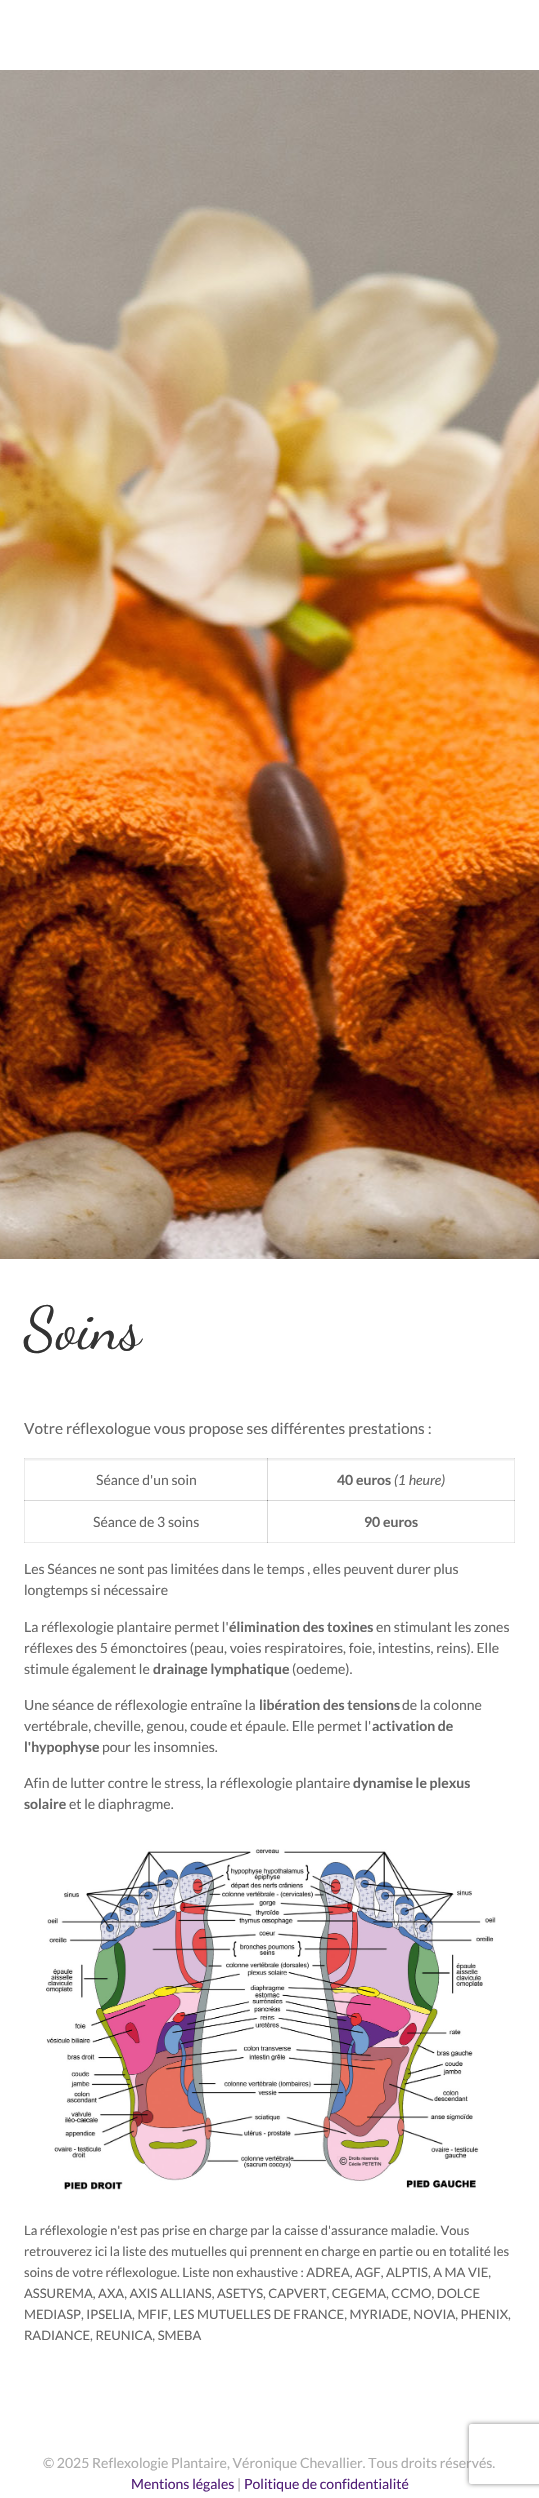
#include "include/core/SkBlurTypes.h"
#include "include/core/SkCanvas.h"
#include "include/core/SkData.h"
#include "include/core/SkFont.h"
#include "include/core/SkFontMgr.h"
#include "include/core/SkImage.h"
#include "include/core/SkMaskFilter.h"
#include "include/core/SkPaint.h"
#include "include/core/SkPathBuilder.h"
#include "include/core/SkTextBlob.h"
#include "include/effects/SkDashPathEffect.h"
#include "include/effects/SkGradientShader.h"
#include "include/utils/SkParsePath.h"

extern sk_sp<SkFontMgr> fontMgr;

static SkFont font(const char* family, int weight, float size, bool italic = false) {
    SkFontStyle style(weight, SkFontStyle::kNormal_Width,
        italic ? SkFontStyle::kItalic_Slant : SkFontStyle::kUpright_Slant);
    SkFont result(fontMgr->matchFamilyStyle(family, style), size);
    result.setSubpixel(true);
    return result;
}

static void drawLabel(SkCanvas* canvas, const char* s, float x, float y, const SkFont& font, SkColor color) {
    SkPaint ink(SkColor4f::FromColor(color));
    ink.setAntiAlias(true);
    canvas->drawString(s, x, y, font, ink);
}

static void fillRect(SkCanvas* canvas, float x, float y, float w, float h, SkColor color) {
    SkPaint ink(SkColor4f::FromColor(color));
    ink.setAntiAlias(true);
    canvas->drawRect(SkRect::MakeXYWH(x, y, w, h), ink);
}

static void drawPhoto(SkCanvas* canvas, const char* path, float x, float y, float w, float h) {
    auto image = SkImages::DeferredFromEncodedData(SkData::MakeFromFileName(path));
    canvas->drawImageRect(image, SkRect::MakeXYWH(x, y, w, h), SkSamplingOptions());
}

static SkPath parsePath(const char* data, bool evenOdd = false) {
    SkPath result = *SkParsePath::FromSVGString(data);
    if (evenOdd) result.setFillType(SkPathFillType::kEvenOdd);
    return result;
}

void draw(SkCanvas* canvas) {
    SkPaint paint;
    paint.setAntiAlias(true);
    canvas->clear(0xFFFFFFFF);
    drawPhoto(canvas, "assets/img1.png", 0, 70, 539, 1189);
    fillRect(canvas, 514, 1458, 1, 43, 0xFFEBEBEB);
    fillRect(canvas, 24, 1500, 1, 43, 0xFFEBEBEB);
    fillRect(canvas, 24, 1542, 244, 1, 0xFFEBEBEB);
    fillRect(canvas, 24, 1542, 1, 1, 0xFFD8D8D8);
    fillRect(canvas, 24, 1500, 244, 1, 0xFFEBEBEB);
    fillRect(canvas, 24, 1500, 1, 1, 0xFFD8D8D8);
    fillRect(canvas, 267, 1500, 1, 43, 0xFFD8D8D8);
    fillRect(canvas, 267, 1542, 248, 1, 0xFFEBEBEB);
    fillRect(canvas, 267, 1542, 1, 1, 0xFFB7B7B7);
    fillRect(canvas, 514, 1500, 1, 43, 0xFFEBEBEB);
    fillRect(canvas, 514, 1542, 1, 1, 0xFFD8D8D8);
    SkFont font1 = font("Dancing Script", 400, 60);
    drawLabel(canvas, "Soins", 24, 1348, font1, 0xFF333333);
    SkFont font2 = font("Lato", 400, 15.4f);
    drawLabel(canvas, "Votre réflexologue vous propose ses différentes prestations :", 24, 1434, font2, 0xFF666666);
    drawPhoto(canvas, "assets/img2.png", 25, 1459, 243, 2);
    fillRect(canvas, 267, 1458, 248, 1, 0xFFEBEBEB);
    fillRect(canvas, 267, 1500, 248, 1, 0xFFD8D8D8);
    fillRect(canvas, 267, 1500, 1, 1, 0xFFA8A8A8);
    fillRect(canvas, 267, 1458, 1, 43, 0x14000000);
    fillRect(canvas, 24, 1458, 244, 1, 0x14000000);
    fillRect(canvas, 267, 1458, 1, 43, 0x14000000);
    fillRect(canvas, 24, 1500, 244, 1, 0x14000000);
    fillRect(canvas, 24, 1458, 1, 43, 0x14000000);
    SkFont font3 = font("Lato", 400, 14);
    drawLabel(canvas, "Séance d'un soin", 96, 1485, font3, 0xFF666666);
    drawPhoto(canvas, "assets/img3.png", 268, 1459, 246, 2);
    fillRect(canvas, 514, 1458, 1, 1, 0xFFD8D8D8);
    SkFont font4 = font("Lato", 700, 14);
    drawLabel(canvas, "40 euros", 337, 1485, font4, 0xFF666666);
    SkFont font5 = font("Lato", 400, 14, true);
    drawLabel(canvas, "(1 heure)", 394, 1485, font5, 0xFF666666);
    drawLabel(canvas, "Séance de 3 soins", 93, 1527, font3, 0xFF666666);
    fillRect(canvas, 514, 1500, 1, 1, 0xFFB7B7B7);
    drawLabel(canvas, "90 euros", 364, 1527, font4, 0xFF666666);
    drawLabel(canvas, "Les Séances ne sont pas limitées dans le temps , elles peuvent durer plus", 24, 1574, font3, 0xFF666666);
    drawLabel(canvas, "longtemps si nécessaire", 24, 1595, font3, 0xFF666666);
    drawLabel(canvas, "La réflexologie plantaire permet l'", 24, 1632, font3, 0xFF666666);
    drawLabel(canvas, "élimination des toxines", 229, 1632, font4, 0xFF666666);
    drawLabel(canvas, "en stimulant les zones", 376, 1632, font3, 0xFF666666);
    drawLabel(canvas, "réflexes des 5 émonctoires (peau, voies respiratoires, foie, intestins, reins). Elle", 24, 1653, font3, 0xFF666666);
    drawLabel(canvas, "stimule également le", 24, 1674, font3, 0xFF666666);
    drawLabel(canvas, "drainage lymphatique", 153, 1674, font4, 0xFF666666);
    drawLabel(canvas, "(oedeme).", 292, 1674, font3, 0xFF666666);
    drawLabel(canvas, "Une séance de réflexologie entraîne la", 24, 1710, font3, 0xFF666666);
    drawLabel(canvas, "libération des tensions", 259, 1710, font4, 0xFF666666);
    drawLabel(canvas, "de la colonne", 402, 1710, font3, 0xFF666666);
    drawLabel(canvas, "vertébrale, cheville, genou, coude et épaule. Elle permet l'", 24, 1731, font3, 0xFF666666);
    drawLabel(canvas, "activation de", 372, 1731, font4, 0xFF666666);
    drawLabel(canvas, "l'hypophyse", 24, 1752, font4, 0xFF666666);
    drawLabel(canvas, "pour les insomnies.", 102, 1752, font3, 0xFF666666);
    drawLabel(canvas, "Afin de lutter contre le stress, la réflexologie plantaire", 24, 1788, font3, 0xFF666666);
    drawLabel(canvas, "dynamise le plexus", 353, 1788, font4, 0xFF666666);
    drawLabel(canvas, "solaire", 24, 1809, font4, 0xFF666666);
    drawLabel(canvas, "et le diaphragme.", 69, 1809, font3, 0xFF666666);
    drawPhoto(canvas, "assets/img4.png", 46, 1849, 450, 341);
    SkFont font6 = font("Lato", 400, 13);
    drawLabel(canvas, "La réflexologie n'est pas prise en charge par la caisse d'assurance maladie. Vous", 24, 2235, font6, 0xFF666666);
    drawLabel(canvas, "retrouverez ici la liste des mutuelles qui prennent en charge en partie ou en totalité les", 24, 2256, font6, 0xFF666666);
    drawLabel(canvas, "soins de votre réflexologue. Liste non exhaustive : ADREA, AGF, ALPTIS, A MA VIE,", 24, 2277, font6, 0xFF666666);
    drawLabel(canvas, "ASSUREMA, AXA, AXIS ALLIANS, ASETYS, CAPVERT, CEGEMA, CCMO, DOLCE", 24, 2298, font6, 0xFF666666);
    drawLabel(canvas, "MEDIASP, IPSELIA, MFIF, LES MUTUELLES DE FRANCE, MYRIADE, NOVIA, PHENIX,", 24, 2319, font6, 0xFF666666);
    drawLabel(canvas, "RADIANCE, REUNICA, SMEBA", 24, 2340, font6, 0xFF666666);
    drawLabel(canvas, "© 2025 Reflexologie Plantaire, Véronique Chevallier. Tous droits réservés.", 43, 2468, font3, 0xFFACACAC);
    drawLabel(canvas, "Mentions légales", 131, 2489, font3, 0xFF511D77);
    drawLabel(canvas, "|", 237, 2489, font3, 0xFFACACAC);
    drawLabel(canvas, "Politique de confidentialité", 244, 2489, font3, 0xFF511D77);
    canvas->save();
    canvas->clipPath(parsePath("M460 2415H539V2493H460ZM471 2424H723C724 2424 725 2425 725 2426V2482C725 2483 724 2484 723 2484H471C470 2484 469 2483 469 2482V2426C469 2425 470 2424 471 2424Z", true), true);
    paint.setColor(0xFF808080);
    paint.setMaskFilter(SkMaskFilter::MakeBlur(kNormal_SkBlurStyle, 2.5f));
    canvas->drawRoundRect(SkRect::MakeXYWH(469, 2424, 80, 60), 2, 2, paint);
    paint.setMaskFilter(nullptr);
    canvas->restore();
}
